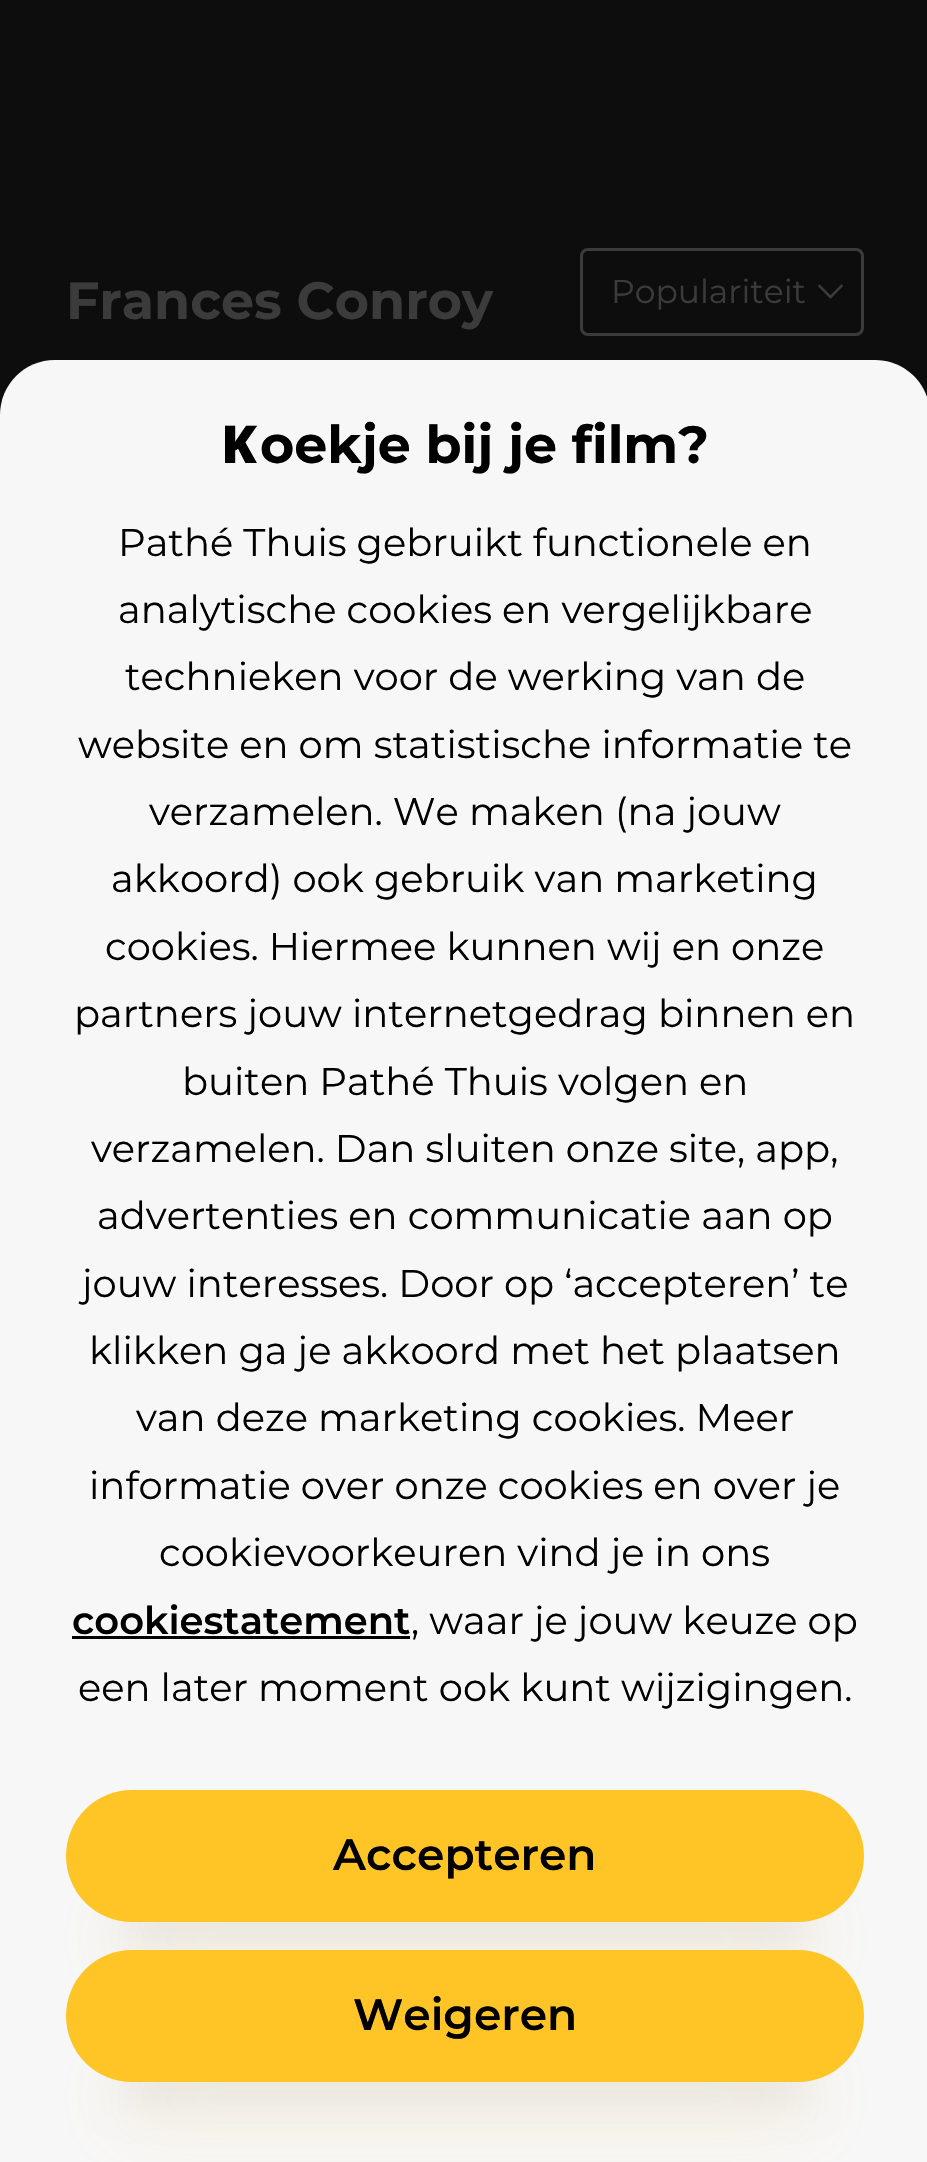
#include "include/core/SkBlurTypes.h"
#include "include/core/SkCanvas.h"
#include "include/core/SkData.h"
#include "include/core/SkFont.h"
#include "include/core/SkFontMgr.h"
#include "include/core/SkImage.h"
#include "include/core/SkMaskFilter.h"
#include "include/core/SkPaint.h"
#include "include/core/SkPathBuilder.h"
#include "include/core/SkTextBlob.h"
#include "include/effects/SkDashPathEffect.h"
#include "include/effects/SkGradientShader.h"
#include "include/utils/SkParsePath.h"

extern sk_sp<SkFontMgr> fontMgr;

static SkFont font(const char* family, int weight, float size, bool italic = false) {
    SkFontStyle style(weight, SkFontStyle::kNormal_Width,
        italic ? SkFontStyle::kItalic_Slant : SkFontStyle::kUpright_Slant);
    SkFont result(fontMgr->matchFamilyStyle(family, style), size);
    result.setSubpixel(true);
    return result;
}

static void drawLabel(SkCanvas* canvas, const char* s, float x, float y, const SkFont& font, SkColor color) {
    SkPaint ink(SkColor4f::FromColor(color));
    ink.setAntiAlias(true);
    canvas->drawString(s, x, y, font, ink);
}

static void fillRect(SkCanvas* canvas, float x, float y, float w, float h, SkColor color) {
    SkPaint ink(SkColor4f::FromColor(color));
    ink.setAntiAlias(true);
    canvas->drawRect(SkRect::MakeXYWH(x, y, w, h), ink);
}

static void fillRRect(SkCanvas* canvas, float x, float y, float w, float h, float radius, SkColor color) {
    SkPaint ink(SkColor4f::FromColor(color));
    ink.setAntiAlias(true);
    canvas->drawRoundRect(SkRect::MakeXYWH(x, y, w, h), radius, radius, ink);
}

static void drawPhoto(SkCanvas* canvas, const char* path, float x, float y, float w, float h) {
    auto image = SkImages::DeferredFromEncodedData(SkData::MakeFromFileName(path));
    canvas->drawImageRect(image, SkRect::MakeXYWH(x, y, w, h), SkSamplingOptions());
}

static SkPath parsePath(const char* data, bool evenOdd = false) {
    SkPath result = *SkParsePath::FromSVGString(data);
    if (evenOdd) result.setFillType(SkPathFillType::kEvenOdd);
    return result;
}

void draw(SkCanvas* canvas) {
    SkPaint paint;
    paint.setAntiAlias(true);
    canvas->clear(0xFF0D0D0D);
    SkFont font1 = font("Montserrat", 700, 52.25f);
    drawLabel(canvas, "Frances Conroy", 66, 319, font1, 0xFF3B3B3B);
    paint.setStroke(true);
    paint.setStrokeWidth(3);
    paint.setColor(0xFF3B3B3B);
    canvas->drawRoundRect(SkRect::MakeXYWH(581.5f, 249.5f, 281, 85), 6.5f, 6.5f, paint);
    SkFont font2 = font("Montserrat", 400, 33);
    drawLabel(canvas, "Populariteit", 611, 303, font2, 0xFF3B3B3B);
    drawPhoto(canvas, "assets/img1.png", 818, 284, 25, 15);
    paint.setStroke(false);
    paint.setColor(0xFFF7F7F7);
    canvas->drawPath(parsePath("M55 360H875C905.5 360 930 384.5 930 415V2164H0V415C0 384.5 24.5 360 55 360Z"), paint);
    SkFont font3 = font("Noto Sans", 900, 52.25f);
    drawLabel(canvas, "K", 221, 463, font3, 0xFF000000);
    drawLabel(canvas, "oekje bij je film?", 260, 463, font1, 0xFF000000);
    SkFont font4 = font("Montserrat", 400, 38.5f);
    drawLabel(canvas, "Pathé Thuis gebruikt functionele en", 118, 556, font4, 0xFF000000);
    drawLabel(canvas, "analytische cookies en vergelijkbare", 118, 623, font4, 0xFF000000);
    drawLabel(canvas, "technieken voor de werking van de", 125, 690, font4, 0xFF000000);
    drawLabel(canvas, "website en om statistische informatie te", 78, 758, font4, 0xFF000000);
    drawLabel(canvas, "verzamelen. We maken (na jouw", 149, 825, font4, 0xFF000000);
    drawLabel(canvas, "akkoord) ook gebruik van marketing", 111, 892, font4, 0xFF000000);
    drawLabel(canvas, "cookies. Hiermee kunnen wij en onze", 105, 960, font4, 0xFF000000);
    drawLabel(canvas, "partners jouw internetgedrag binnen en", 74, 1027, font4, 0xFF000000);
    drawLabel(canvas, "buiten Pathé Thuis volgen en", 182, 1095, font4, 0xFF000000);
    drawLabel(canvas, "verzamelen. Dan sluiten onze site, app,", 91, 1162, font4, 0xFF000000);
    drawLabel(canvas, "advertenties en communicatie aan op", 97, 1229, font4, 0xFF000000);
    drawLabel(canvas, "jouw interesses. Door op ‘accepteren’ te", 82, 1297, font4, 0xFF000000);
    drawLabel(canvas, "klikken ga je akkoord met het plaatsen", 89, 1364, font4, 0xFF000000);
    drawLabel(canvas, "van deze marketing cookies. Meer", 136, 1431, font4, 0xFF000000);
    drawLabel(canvas, "informatie over onze cookies en over je", 89, 1499, font4, 0xFF000000);
    drawLabel(canvas, "cookievoorkeuren vind je in ons", 159, 1566, font4, 0xFF000000);
    SkFont font5 = font("Montserrat", 600, 38.5f);
    drawLabel(canvas, "cookiestatement", 72, 1634, font5, 0xFF000000);
    fillRect(canvas, 72, 1636, 338, 3, 0xFF000000);
    drawLabel(canvas, ", waar je jouw keuze op", 411, 1634, font4, 0xFF000000);
    drawLabel(canvas, "een later moment ook kunt wijzigingen.", 78, 1701, font4, 0xFF000000);
    paint.setColor(0x4DFFC426);
    paint.setMaskFilter(SkMaskFilter::MakeBlur(kNormal_SkBlurStyle, 41));
    canvas->drawRoundRect(SkRect::MakeXYWH(121, 1928, 688, 22), 11, 11, paint);
    paint.setMaskFilter(nullptr);
    paint.setColor(0x1A000000);
    paint.setMaskFilter(SkMaskFilter::MakeBlur(kNormal_SkBlurStyle, 20.5f));
    canvas->drawRoundRect(SkRect::MakeXYWH(121, 1914, 688, 22), 11, 11, paint);
    paint.setMaskFilter(nullptr);
    fillRRect(canvas, 66, 1790, 798, 132, 66, 0xFFFFC426);
    SkFont font6 = font("Montserrat", 600, 44);
    drawLabel(canvas, "Accepteren", 333, 1870, font6, 0xFF000000);
    paint.setColor(0x4DFFC426);
    paint.setMaskFilter(SkMaskFilter::MakeBlur(kNormal_SkBlurStyle, 41));
    canvas->drawRoundRect(SkRect::MakeXYWH(121, 2087, 688, 22), 11, 11, paint);
    paint.setMaskFilter(nullptr);
    paint.setColor(0x1A000000);
    paint.setMaskFilter(SkMaskFilter::MakeBlur(kNormal_SkBlurStyle, 20.5f));
    canvas->drawRoundRect(SkRect::MakeXYWH(121, 2074, 688, 22), 11, 11, paint);
    paint.setMaskFilter(nullptr);
    fillRRect(canvas, 66, 1950, 798, 132, 66, 0xFFFFC426);
    drawLabel(canvas, "Weigeren", 353, 2030, font6, 0xFF000000);
}
